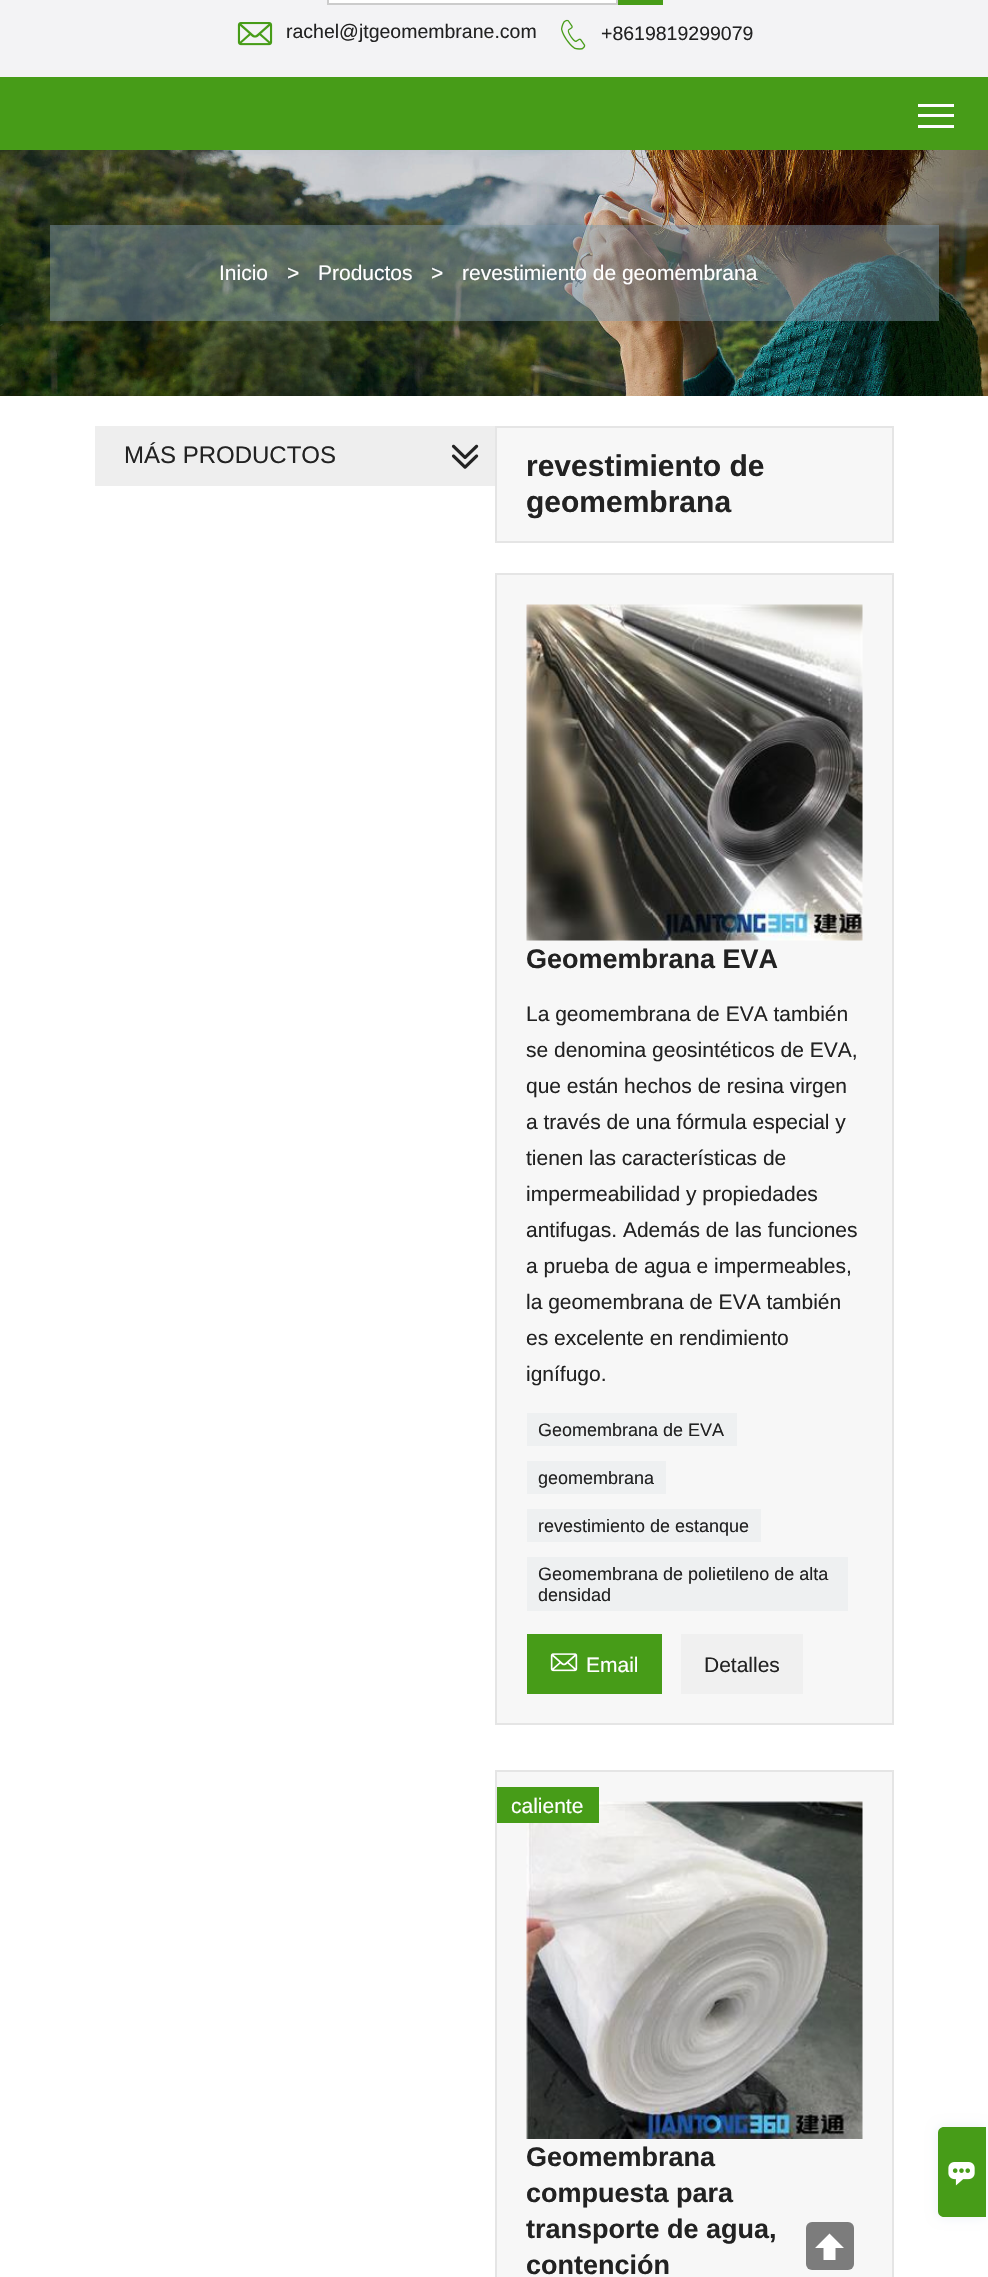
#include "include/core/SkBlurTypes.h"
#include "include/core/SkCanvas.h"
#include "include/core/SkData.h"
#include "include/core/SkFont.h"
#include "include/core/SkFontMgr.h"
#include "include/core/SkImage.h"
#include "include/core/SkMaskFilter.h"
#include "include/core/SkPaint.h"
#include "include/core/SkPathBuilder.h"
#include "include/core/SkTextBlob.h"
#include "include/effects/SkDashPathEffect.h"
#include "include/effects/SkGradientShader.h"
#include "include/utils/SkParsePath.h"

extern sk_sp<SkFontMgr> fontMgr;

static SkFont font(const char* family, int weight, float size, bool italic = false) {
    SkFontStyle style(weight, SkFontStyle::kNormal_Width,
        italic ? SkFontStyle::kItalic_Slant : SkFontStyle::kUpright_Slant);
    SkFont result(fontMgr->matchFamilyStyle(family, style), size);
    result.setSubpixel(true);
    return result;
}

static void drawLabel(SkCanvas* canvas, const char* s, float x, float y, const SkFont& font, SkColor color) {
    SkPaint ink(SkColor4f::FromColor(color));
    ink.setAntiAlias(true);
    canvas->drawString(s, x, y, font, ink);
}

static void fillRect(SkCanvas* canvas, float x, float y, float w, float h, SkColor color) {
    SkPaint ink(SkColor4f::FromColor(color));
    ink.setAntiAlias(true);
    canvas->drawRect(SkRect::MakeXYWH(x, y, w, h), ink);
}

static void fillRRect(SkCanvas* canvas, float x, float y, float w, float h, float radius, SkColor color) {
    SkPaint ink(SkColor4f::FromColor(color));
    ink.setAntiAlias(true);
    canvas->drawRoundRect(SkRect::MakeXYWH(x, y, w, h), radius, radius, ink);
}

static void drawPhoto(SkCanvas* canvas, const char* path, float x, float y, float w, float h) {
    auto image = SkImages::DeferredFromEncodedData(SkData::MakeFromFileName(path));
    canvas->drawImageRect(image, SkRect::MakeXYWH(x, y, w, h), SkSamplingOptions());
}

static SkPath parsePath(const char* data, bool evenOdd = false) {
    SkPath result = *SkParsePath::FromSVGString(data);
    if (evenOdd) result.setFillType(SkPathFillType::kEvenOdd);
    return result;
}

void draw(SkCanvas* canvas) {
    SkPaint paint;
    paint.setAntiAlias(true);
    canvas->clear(0xFFFFFFFF);
    fillRect(canvas, 0, 0, 988, 77, 0xFFF3F3F5);
    paint.setColor(0xFFFFFFFF);
    canvas->drawRect(SkRect::MakeXYWH(328, -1, 289, 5), paint);
    paint.setStroke(true);
    paint.setStrokeWidth(2);
    paint.setColor(0xFFCCCCCC);
    canvas->drawRect(SkRect::MakeXYWH(328, -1, 289, 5), paint);
    fillRect(canvas, 618, 0, 45, 5, 0xFF479C18);
    drawPhoto(canvas, "assets/img1.png", 237, 22, 36, 24);
    SkFont font1 = font("Liberation Sans", 400, 19.5f);
    drawLabel(canvas, "rachel@jtgeomembrane.com", 286, 38, font1, 0xFF222222);
    drawPhoto(canvas, "assets/img2.png", 561, 19, 25, 31);
    drawLabel(canvas, "+8619819299079", 601, 40, font1, 0xFF222222);
    fillRect(canvas, 0, 77, 988, 73, 0xFF479C18);
    fillRect(canvas, 918, 114, 36, 3, 0xFFFFFFFF);
    fillRect(canvas, 918, 104, 36, 3, 0xFFFFFFFF);
    fillRect(canvas, 918, 125, 36, 3, 0xFFFFFFFF);
    drawPhoto(canvas, "assets/img3.png", 0, 150, 988, 246);
    fillRect(canvas, 50, 225, 889, 96, 0x787F98AD);
    SkFont font2 = font("Liberation Sans", 400, 21);
    drawLabel(canvas, "Inicio", 219, 280, font2, 0xFFFFFFFF);
    drawLabel(canvas, ">", 287, 280, font2, 0xFFFFFFFF);
    drawLabel(canvas, "Productos", 318, 280, font2, 0xFFFFFFFF);
    drawLabel(canvas, ">", 431, 280, font2, 0xFFFFFFFF);
    drawLabel(canvas, "revestimiento de geomembrana", 462, 280, font2, 0xFFFFFFFF);
    fillRect(canvas, 95, 426, 400, 60, 0xFFEEEEEE);
    SkFont font3 = font("Liberation Sans", 400, 24);
    drawLabel(canvas, "MÁS PRODUCTOS", 124, 463, font3, 0xFF222222);
    drawPhoto(canvas, "assets/img4.png", 451, 444, 28, 25);
    paint.setStroke(false);
    paint.setColor(0xFFF7F7F7);
    canvas->drawRect(SkRect::MakeXYWH(496, 427, 397, 115), paint);
    paint.setStroke(true);
    paint.setColor(0xFFE5E5E5);
    canvas->drawRect(SkRect::MakeXYWH(496, 427, 397, 115), paint);
    SkFont font4 = font("Liberation Sans", 700, 30);
    drawLabel(canvas, "revestimiento de", 526, 476, font4, 0xFF222222);
    drawLabel(canvas, "geomembrana", 526, 512, font4, 0xFF222222);
    paint.setStroke(false);
    paint.setColor(0xFFF7F7F7);
    canvas->drawRect(SkRect::MakeXYWH(496, 574, 397, 1150), paint);
    paint.setStroke(true);
    paint.setColor(0xFFE5E5E5);
    canvas->drawRect(SkRect::MakeXYWH(496, 574, 397, 1150), paint);
    drawPhoto(canvas, "assets/img5.png", 526, 604, 337, 337);
    SkFont font5 = font("Liberation Sans", 700, 27);
    drawLabel(canvas, "Geomembrana EVA", 526, 968, font5, 0xFF222222);
    drawLabel(canvas, "La geomembrana de EVA también", 526, 1021, font2, 0xFF222222);
    drawLabel(canvas, "se denomina geosintéticos de EVA,", 526, 1057, font2, 0xFF222222);
    drawLabel(canvas, "que están hechos de resina virgen", 526, 1093, font2, 0xFF222222);
    drawLabel(canvas, "a través de una fórmula especial y", 526, 1129, font2, 0xFF222222);
    drawLabel(canvas, "tienen las características de", 526, 1165, font2, 0xFF222222);
    drawLabel(canvas, "impermeabilidad y propiedades", 526, 1201, font2, 0xFF222222);
    drawLabel(canvas, "antifugas. Además de las funciones", 526, 1237, font2, 0xFF222222);
    drawLabel(canvas, "a prueba de agua e impermeables,", 526, 1273, font2, 0xFF222222);
    drawLabel(canvas, "la geomembrana de EVA también", 526, 1309, font2, 0xFF222222);
    drawLabel(canvas, "es excelente en rendimiento", 526, 1345, font2, 0xFF222222);
    drawLabel(canvas, "ignífugo.", 526, 1381, font2, 0xFF222222);
    fillRect(canvas, 527, 1413, 210, 33, 0xFFEEF0F1);
    SkFont font6 = font("Liberation Sans", 400, 18);
    drawLabel(canvas, "Geomembrana de EVA", 538, 1436, font6, 0xFF222222);
    fillRect(canvas, 527, 1461, 139, 33, 0xFFEEF0F1);
    drawLabel(canvas, "geomembrana", 538, 1484, font6, 0xFF222222);
    fillRect(canvas, 527, 1509, 234, 33, 0xFFEEF0F1);
    drawLabel(canvas, "revestimiento de estanque", 538, 1532, font6, 0xFF222222);
    fillRect(canvas, 527, 1557, 321, 54, 0xFFEEF0F1);
    drawLabel(canvas, "Geomembrana de polietileno de alta", 538, 1580, font6, 0xFF222222);
    drawLabel(canvas, "densidad", 538, 1601, font6, 0xFF222222);
    fillRect(canvas, 527, 1634, 135, 60, 0xFF479C18);
    drawPhoto(canvas, "assets/img6.png", 550, 1653, 28, 19);
    drawLabel(canvas, "Email", 586, 1672, font2, 0xFFFFFFFF);
    fillRect(canvas, 681, 1634, 122, 60, 0xFFF0F0F0);
    drawLabel(canvas, "Detalles", 704, 1672, font2, 0xFF222222);
    paint.setStroke(false);
    paint.setColor(0xFFF7F7F7);
    canvas->drawRect(SkRect::MakeXYWH(496, 1771, 397, 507), paint);
    paint.setStroke(true);
    paint.setColor(0xFFE5E5E5);
    canvas->drawRect(SkRect::MakeXYWH(496, 1771, 397, 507), paint);
    drawPhoto(canvas, "assets/img7.png", 526, 1801, 337, 338);
    fillRect(canvas, 497, 1787, 102, 36, 0xFF479C18);
    drawLabel(canvas, "caliente", 511, 1813, font2, 0xFFFFFFFF);
    drawLabel(canvas, "Geomembrana", 526, 2166, font5, 0xFF222222);
    drawLabel(canvas, "compuesta para", 526, 2202, font5, 0xFF222222);
    drawLabel(canvas, "transporte de agua,", 526, 2238, font5, 0xFF222222);
    drawLabel(canvas, "contención", 526, 2274, font5, 0xFF222222);
    fillRRect(canvas, 806, 2222, 48, 48, 6, 0xFF7C7C7C);
    paint.setStroke(false);
    paint.setColor(0xFFFFFFFF);
    canvas->drawPath(parsePath("M844 2248L829.5 2233.5L815 2248H823.5V2260H835.5V2248Z"), paint);
    paint.setColor(0xFFEAF0F6);
    paint.setMaskFilter(SkMaskFilter::MakeBlur(kNormal_SkBlurStyle, 6));
    canvas->drawRoundRect(SkRect::MakeXYWH(938, 2127, 48, 90), 6, 6, paint);
    paint.setMaskFilter(nullptr);
    paint.setColor(0xFF479C18);
    canvas->drawPath(parsePath("M944 2127H986V2217H944C940.5 2217 938 2214.5 938 2211V2133C938 2129.5 940.5 2127 944 2127Z"), paint);
    drawPhoto(canvas, "assets/img8.png", 948, 2162, 27, 24);
}
